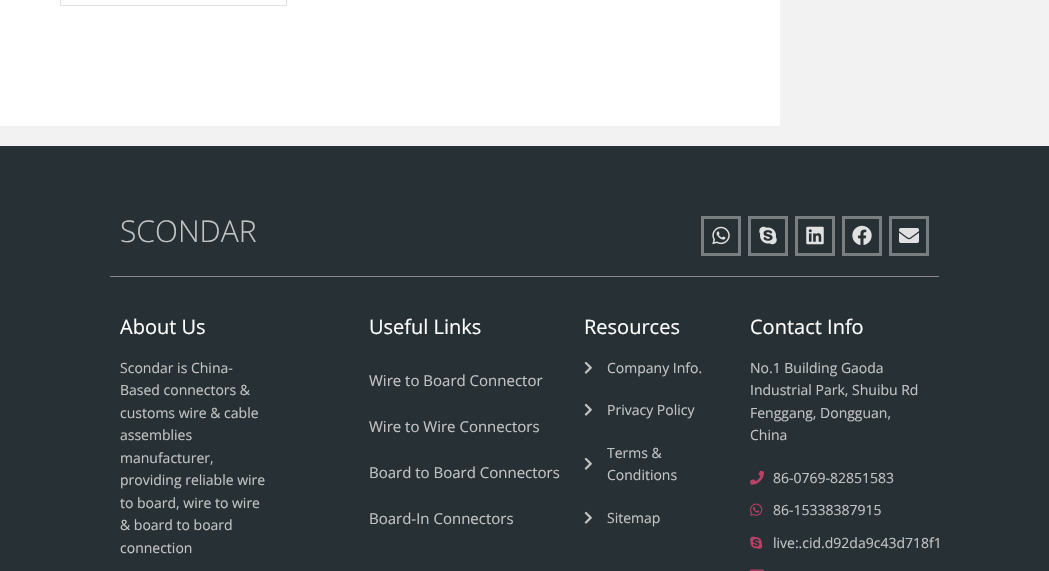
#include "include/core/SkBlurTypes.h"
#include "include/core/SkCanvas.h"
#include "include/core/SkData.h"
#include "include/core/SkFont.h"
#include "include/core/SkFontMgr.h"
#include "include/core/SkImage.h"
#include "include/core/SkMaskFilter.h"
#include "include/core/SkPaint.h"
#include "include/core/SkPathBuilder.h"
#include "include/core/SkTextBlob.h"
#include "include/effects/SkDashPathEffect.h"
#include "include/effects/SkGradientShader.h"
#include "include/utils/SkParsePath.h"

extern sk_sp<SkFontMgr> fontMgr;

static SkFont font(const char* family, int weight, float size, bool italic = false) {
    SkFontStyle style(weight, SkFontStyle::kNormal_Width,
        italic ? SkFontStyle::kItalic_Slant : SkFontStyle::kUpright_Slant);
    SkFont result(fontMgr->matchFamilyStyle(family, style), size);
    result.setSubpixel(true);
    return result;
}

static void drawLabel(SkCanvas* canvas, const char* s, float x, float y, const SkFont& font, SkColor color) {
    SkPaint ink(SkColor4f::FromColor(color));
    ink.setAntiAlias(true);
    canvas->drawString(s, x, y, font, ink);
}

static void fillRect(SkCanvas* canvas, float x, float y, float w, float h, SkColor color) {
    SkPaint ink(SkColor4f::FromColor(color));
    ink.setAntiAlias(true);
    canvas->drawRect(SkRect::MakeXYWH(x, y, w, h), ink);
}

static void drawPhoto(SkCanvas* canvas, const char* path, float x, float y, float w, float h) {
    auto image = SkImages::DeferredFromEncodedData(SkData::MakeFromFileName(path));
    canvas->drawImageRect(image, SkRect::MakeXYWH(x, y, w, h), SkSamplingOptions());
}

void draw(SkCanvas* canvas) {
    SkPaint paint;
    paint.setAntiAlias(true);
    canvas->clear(0xFFF2F2F2);
    fillRect(canvas, 0, 0, 780, 126, 0xFFFFFFFF);
    paint.setStroke(true);
    paint.setStrokeWidth(1);
    paint.setColor(0xFFE1E1E1);
    canvas->drawRect(SkRect::MakeXYWH(60.5f, -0.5f, 226, 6), paint);
    fillRect(canvas, 0, 146, 1049, 425, 0xFF273034);
    fillRect(canvas, 110, 276, 829, 1, 0xFF898989);
    SkFont font1 = font("Open Sans", 300, 30);
    drawLabel(canvas, "SCONDAR", 120, 242, font1, 0xFFC3C3C3);
    paint.setStrokeWidth(3);
    paint.setColor(0xFF797E80);
    canvas->drawRect(SkRect::MakeXYWH(702.5f, 217.5f, 37, 37), paint);
    drawPhoto(canvas, "assets/img1.png", 712, 226, 18, 19);
    canvas->drawRect(SkRect::MakeXYWH(749.5f, 217.5f, 37, 37), paint);
    drawPhoto(canvas, "assets/img2.png", 759, 226, 18, 19);
    canvas->drawRect(SkRect::MakeXYWH(796.5f, 217.5f, 37, 37), paint);
    drawPhoto(canvas, "assets/img3.png", 806, 226, 18, 19);
    canvas->drawRect(SkRect::MakeXYWH(843.5f, 217.5f, 37, 37), paint);
    drawPhoto(canvas, "assets/img4.png", 852, 225, 20, 20);
    canvas->drawRect(SkRect::MakeXYWH(890.5f, 217.5f, 37, 37), paint);
    drawPhoto(canvas, "assets/img5.png", 899, 228, 20, 15);
    SkFont font2 = font("Open Sans", 400, 20);
    drawLabel(canvas, "About Us", 120, 334, font2, 0xFFFFFFFF);
    SkFont font3 = font("Open Sans", 400, 14);
    drawLabel(canvas, "Scondar is China-", 120, 373, font3, 0xFFC3C3C3);
    drawLabel(canvas, "Based connectors &", 120, 395, font3, 0xFFC3C3C3);
    drawLabel(canvas, "customs wire & cable", 120, 418, font3, 0xFFC3C3C3);
    drawLabel(canvas, "assemblies", 120, 440, font3, 0xFFC3C3C3);
    drawLabel(canvas, "manufacturer,", 120, 463, font3, 0xFFC3C3C3);
    drawLabel(canvas, "providing reliable wire", 120, 485, font3, 0xFFC3C3C3);
    drawLabel(canvas, "to board, wire to wire", 120, 508, font3, 0xFFC3C3C3);
    drawLabel(canvas, "& board to board", 120, 530, font3, 0xFFC3C3C3);
    drawLabel(canvas, "connection", 120, 553, font3, 0xFFC3C3C3);
    drawLabel(canvas, "Useful Links", 369, 334, font2, 0xFFFFFFFF);
    SkFont font4 = font("Open Sans", 400, 15);
    drawLabel(canvas, "Wire to Board Connector", 369, 386, font4, 0xFFC3C3C3);
    drawLabel(canvas, "Wire to Wire Connectors", 369, 432, font4, 0xFFC3C3C3);
    drawLabel(canvas, "Board to Board Connectors", 369, 478, font4, 0xFFC3C3C3);
    drawLabel(canvas, "Board-In Connectors", 369, 524, font4, 0xFFC3C3C3);
    drawLabel(canvas, "Resources", 584, 334, font2, 0xFFFFFFFF);
    drawPhoto(canvas, "assets/img6.png", 584, 361, 8, 13);
    drawLabel(canvas, "Company Info.", 607, 373, font3, 0xFFC3C3C3);
    drawPhoto(canvas, "assets/img6.png", 584, 403, 8, 13);
    drawLabel(canvas, "Privacy Policy", 607, 415, font3, 0xFFC3C3C3);
    drawPhoto(canvas, "assets/img6.png", 584, 457, 8, 13);
    drawLabel(canvas, "Terms &", 607, 458, font3, 0xFFC3C3C3);
    drawLabel(canvas, "Conditions", 607, 480, font3, 0xFFC3C3C3);
    drawPhoto(canvas, "assets/img6.png", 584, 511, 8, 13);
    drawLabel(canvas, "Sitemap", 607, 523, font3, 0xFFC3C3C3);
    drawLabel(canvas, "Contact Info", 750, 334, font2, 0xFFFFFFFF);
    drawLabel(canvas, "No.1 Building Gaoda", 750, 373, font3, 0xFFC3C3C3);
    drawLabel(canvas, "Industrial Park, Shuibu Rd", 750, 395, font3, 0xFFC3C3C3);
    drawLabel(canvas, "Fenggang, Dongguan,", 750, 418, font3, 0xFFC3C3C3);
    drawLabel(canvas, "China", 750, 440, font3, 0xFFC3C3C3);
    drawPhoto(canvas, "assets/img7.png", 750, 470, 14, 15);
    drawLabel(canvas, "86-0769-82851583", 773, 483, font3, 0xFFC3C3C3);
    drawPhoto(canvas, "assets/img8.png", 750, 503, 13, 13);
    drawLabel(canvas, "86-15338387915", 773, 515, font3, 0xFFC3C3C3);
    drawPhoto(canvas, "assets/img9.png", 750, 536, 13, 13);
    drawLabel(canvas, "live:.cid.d92da9c43d718f1", 773, 548, font3, 0xFFC3C3C3);
    drawPhoto(canvas, "assets/img10.png", 750, 569, 14, 2);
}
